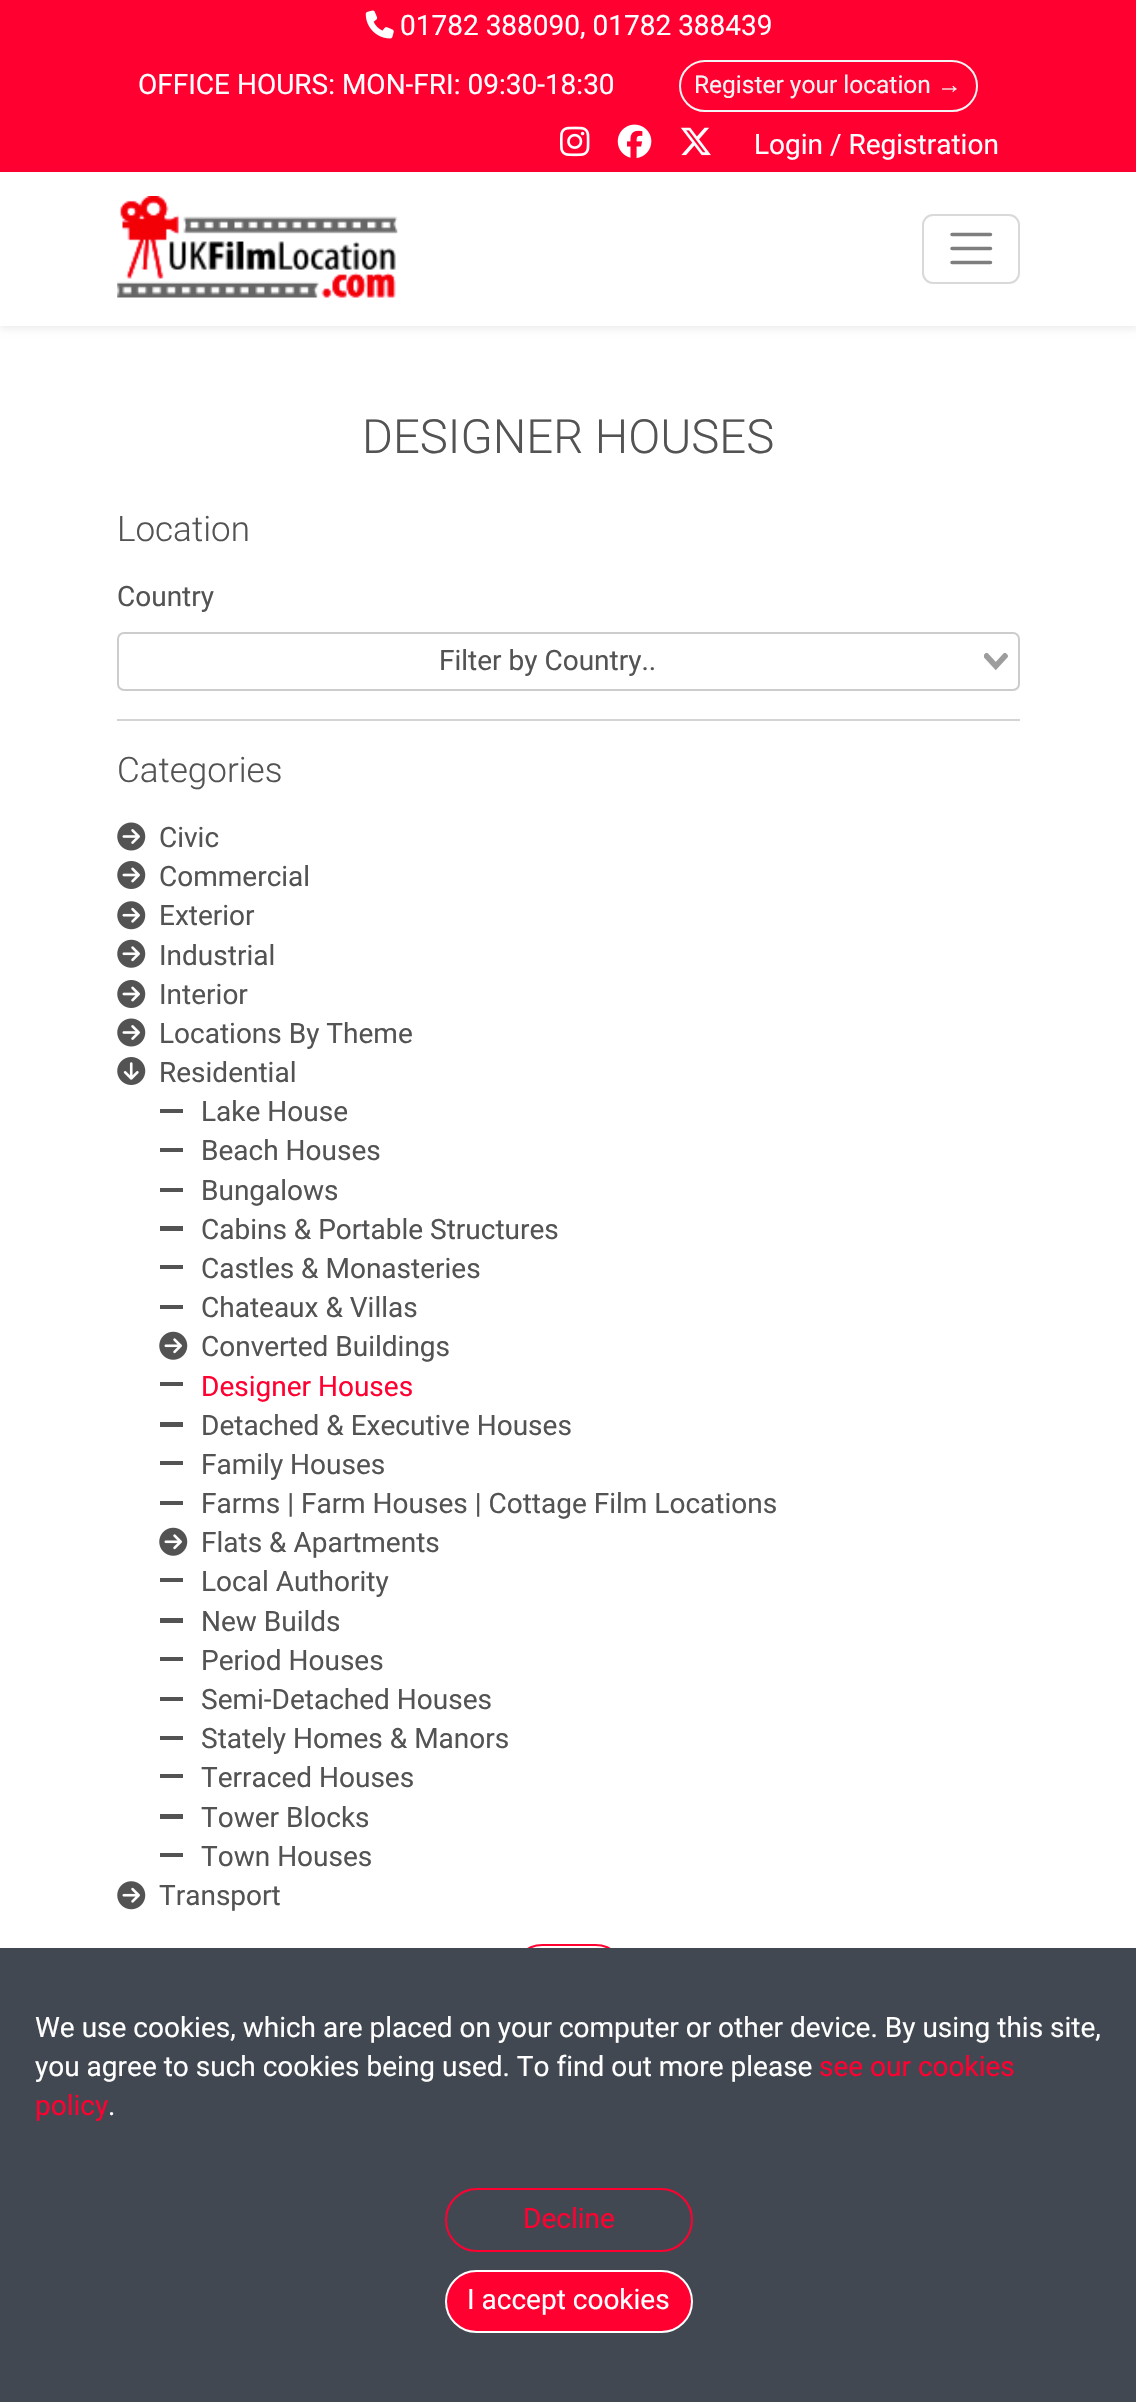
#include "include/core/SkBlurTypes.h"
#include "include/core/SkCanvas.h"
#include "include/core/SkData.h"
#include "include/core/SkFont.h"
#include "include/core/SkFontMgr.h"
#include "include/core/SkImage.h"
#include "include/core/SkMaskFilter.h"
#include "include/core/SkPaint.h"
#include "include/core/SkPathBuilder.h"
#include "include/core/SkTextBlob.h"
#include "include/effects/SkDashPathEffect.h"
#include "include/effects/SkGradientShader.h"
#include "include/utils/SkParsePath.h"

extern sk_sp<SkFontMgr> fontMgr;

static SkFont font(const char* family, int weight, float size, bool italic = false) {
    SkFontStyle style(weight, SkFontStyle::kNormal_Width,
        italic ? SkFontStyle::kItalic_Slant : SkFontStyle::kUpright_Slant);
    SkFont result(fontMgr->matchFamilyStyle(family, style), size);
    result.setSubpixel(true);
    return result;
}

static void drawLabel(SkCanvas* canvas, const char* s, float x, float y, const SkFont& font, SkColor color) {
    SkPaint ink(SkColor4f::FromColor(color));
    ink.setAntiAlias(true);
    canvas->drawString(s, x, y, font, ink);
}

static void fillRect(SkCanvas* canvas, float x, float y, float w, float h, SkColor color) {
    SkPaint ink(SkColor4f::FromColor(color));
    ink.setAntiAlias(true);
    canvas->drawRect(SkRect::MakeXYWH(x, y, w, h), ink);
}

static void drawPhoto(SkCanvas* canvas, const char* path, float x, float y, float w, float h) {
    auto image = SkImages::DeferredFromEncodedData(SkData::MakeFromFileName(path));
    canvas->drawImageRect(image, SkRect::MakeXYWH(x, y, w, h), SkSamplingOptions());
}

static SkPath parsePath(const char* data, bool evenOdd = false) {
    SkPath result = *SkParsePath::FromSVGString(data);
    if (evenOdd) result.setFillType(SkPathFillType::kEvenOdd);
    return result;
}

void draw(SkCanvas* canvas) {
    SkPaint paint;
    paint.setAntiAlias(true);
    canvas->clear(0xFFFFFFFF);
    fillRect(canvas, 0, 0, 1136, 172, 0xFFFF0031);
    drawPhoto(canvas, "assets/img1.png", 365, 10, 29, 29);
    SkFont font1 = font("Roboto", 400, 28);
    drawLabel(canvas, "01782 388090, 01782 388439", 400, 35, font1, 0xFFFFFFFF);
    drawLabel(canvas, "OFFICE HOURS: MON-FRI: 09:30-18:30", 138, 94, font1, 0xFFFFFFFF);
    paint.setStroke(true);
    paint.setStrokeWidth(2);
    paint.setColor(0xFFF4F4F4);
    canvas->drawRoundRect(SkRect::MakeXYWH(680, 61, 297, 50), 25, 25, paint);
    SkFont font2 = font("Roboto", 400, 24.5f);
    drawLabel(canvas, "Register your location", 694, 93, font2, 0xFFF4F4F4);
    SkFont font3 = font("Liberation Sans", 400, 24.5f);
    drawLabel(canvas, "→", 937, 93, font3, 0xFFF4F4F4);
    drawPhoto(canvas, "assets/img2.png", 560, 126, 30, 31);
    drawPhoto(canvas, "assets/img3.png", 617, 124, 35, 34);
    drawPhoto(canvas, "assets/img4.png", 680, 127, 31, 29);
    drawLabel(canvas, "Login / Registration", 754, 154, font1, 0xFFFFFFFF);
    paint.setStroke(false);
    paint.setColor(0x12000000);
    paint.setMaskFilter(SkMaskFilter::MakeBlur(kNormal_SkBlurStyle, 3.5f));
    canvas->drawRect(SkRect::MakeXYWH(0, 175, 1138, 154), paint);
    paint.setMaskFilter(nullptr);
    fillRect(canvas, 0, 172, 1136, 154, 0xFFFFFFFF);
    drawPhoto(canvas, "assets/img5.png", 117, 196, 281, 102);
    paint.setStroke(true);
    paint.setColor(0xFFD9D9D9);
    canvas->drawRoundRect(SkRect::MakeXYWH(923, 215, 96, 68), 10, 10, paint);
    paint.setStrokeWidth(3.5f);
    paint.setStrokeCap(SkPaint::kRound_Cap);
    paint.setColor(0xFF7E7E7E);
    canvas->drawPath(parsePath("M952 234.5H990.5M952 248.5H990.5M952 262.5H990.5"), paint);
    SkFont font4 = font("Roboto", 300, 47.25f);
    drawLabel(canvas, "DESIGNER HOUSES", 362, 453, font4, 0xFF535353);
    SkFont font5 = font("Roboto", 300, 35);
    drawLabel(canvas, "Location", 117, 541, font5, 0xFF535353);
    drawLabel(canvas, "Country", 117, 606, font1, 0xFF535353);
    paint.setStrokeWidth(2);
    paint.setStrokeCap(SkPaint::kButt_Cap);
    paint.setColor(0xFFCCCCCC);
    canvas->drawRoundRect(SkRect::MakeXYWH(118, 633, 901, 57), 6, 6, paint);
    drawLabel(canvas, "Filter by Country..", 439, 670, font1, 0xFF535353);
    drawPhoto(canvas, "assets/img6.png", 984, 653, 24, 17);
    fillRect(canvas, 117, 719, 903, 2, 0xFFD4D4D4);
    drawLabel(canvas, "Categories", 117, 782, font5, 0xFF535353);
    drawPhoto(canvas, "assets/img7.png", 117, 822, 29, 29);
    drawLabel(canvas, "Civic", 159, 847, font1, 0xFF535353);
    drawPhoto(canvas, "assets/img8.png", 117, 861, 29, 28);
    drawLabel(canvas, "Commercial", 159, 886, font1, 0xFF535353);
    drawPhoto(canvas, "assets/img9.png", 117, 901, 29, 29);
    drawLabel(canvas, "Exterior", 159, 925, font1, 0xFF535353);
    drawPhoto(canvas, "assets/img10.png", 117, 939, 29, 29);
    drawLabel(canvas, "Industrial", 159, 965, font1, 0xFF535353);
    drawPhoto(canvas, "assets/img8.png", 117, 980, 29, 28);
    drawLabel(canvas, "Interior", 159, 1004, font1, 0xFF535353);
    drawPhoto(canvas, "assets/img7.png", 117, 1018, 29, 29);
    drawLabel(canvas, "Locations By Theme", 159, 1043, font1, 0xFF535353);
    drawPhoto(canvas, "assets/img11.png", 117, 1057, 29, 28);
    drawLabel(canvas, "Residential", 159, 1082, font1, 0xFF535353);
    fillRect(canvas, 160, 1109, 23, 4, 0xFF535353);
    drawLabel(canvas, "Lake House", 201, 1121, font1, 0xFF535353);
    fillRect(canvas, 160, 1148, 23, 4, 0xFF535353);
    drawLabel(canvas, "Beach Houses", 201, 1160, font1, 0xFF535353);
    fillRect(canvas, 160, 1188, 23, 4, 0xFF535353);
    drawLabel(canvas, "Bungalows", 201, 1200, font1, 0xFF535353);
    fillRect(canvas, 160, 1226, 23, 5, 0xFF535353);
    drawLabel(canvas, "Cabins & Portable Structures", 201, 1239, font1, 0xFF535353);
    fillRect(canvas, 160, 1265, 23, 4, 0xFF535353);
    drawLabel(canvas, "Castles & Monasteries", 201, 1278, font1, 0xFF535353);
    fillRect(canvas, 160, 1305, 23, 4, 0xFF535353);
    drawLabel(canvas, "Chateaux & Villas", 201, 1317, font1, 0xFF535353);
    drawPhoto(canvas, "assets/img10.png", 159, 1331, 29, 29);
    drawLabel(canvas, "Converted Buildings", 201, 1356, font1, 0xFF535353);
    fillRect(canvas, 160, 1382, 23, 4, 0xFF535353);
    drawLabel(canvas, "Designer Houses", 201, 1396, font1, 0xFFFF0031);
    fillRect(canvas, 160, 1422, 23, 5, 0xFF535353);
    drawLabel(canvas, "Detached & Executive Houses", 201, 1435, font1, 0xFF535353);
    fillRect(canvas, 160, 1461, 23, 4, 0xFF535353);
    drawLabel(canvas, "Family Houses", 201, 1474, font1, 0xFF535353);
    fillRect(canvas, 160, 1501, 23, 4, 0xFF535353);
    drawLabel(canvas, "Farms | Farm Houses | Cottage Film Locations", 201, 1513, font1, 0xFF535353);
    drawPhoto(canvas, "assets/img10.png", 159, 1527, 29, 29);
    drawLabel(canvas, "Flats & Apartments", 201, 1552, font1, 0xFF535353);
    fillRect(canvas, 160, 1578, 23, 4, 0xFF535353);
    drawLabel(canvas, "Local Authority", 201, 1591, font1, 0xFF535353);
    fillRect(canvas, 160, 1618, 23, 5, 0xFF535353);
    drawLabel(canvas, "New Builds", 201, 1631, font1, 0xFF535353);
    fillRect(canvas, 160, 1657, 23, 4, 0xFF535353);
    drawLabel(canvas, "Period Houses", 201, 1670, font1, 0xFF535353);
    fillRect(canvas, 160, 1697, 23, 4, 0xFF535353);
    drawLabel(canvas, "Semi-Detached Houses", 201, 1709, font1, 0xFF535353);
    fillRect(canvas, 160, 1736, 23, 4, 0xFF535353);
    drawLabel(canvas, "Stately Homes & Manors", 201, 1748, font1, 0xFF535353);
    fillRect(canvas, 160, 1774, 23, 4, 0xFF535353);
    drawLabel(canvas, "Terraced Houses", 201, 1787, font1, 0xFF535353);
    fillRect(canvas, 160, 1814, 23, 5, 0xFF535353);
    drawLabel(canvas, "Tower Blocks", 201, 1827, font1, 0xFF535353);
    fillRect(canvas, 160, 1853, 23, 4, 0xFF535353);
    drawLabel(canvas, "Town Houses", 201, 1866, font1, 0xFF535353);
    drawPhoto(canvas, "assets/img9.png", 117, 1881, 29, 29);
    drawLabel(canvas, "Transport", 159, 1905, font1, 0xFF535353);
    paint.setColor(0xFFFF0031);
    canvas->drawRoundRect(SkRect::MakeXYWH(512, 1945, 114, 61), 30.5f, 30.5f, paint);
    fillRect(canvas, 0, 1948, 1136, 454, 0xFF424851);
    drawLabel(canvas, "We use cookies, which are placed on your computer or other device. By using this site,", 35, 2037, font1, 0xFFFFFFFF);
    drawLabel(canvas, "you agree to such cookies being used. To find out more please", 35, 2076, font1, 0xFFFFFFFF);
    drawLabel(canvas, "see our cookies", 819, 2076, font1, 0xFFFF0031);
    drawLabel(canvas, "policy", 35, 2115, font1, 0xFFFF0031);
    drawLabel(canvas, ".", 108, 2115, font1, 0xFFFFFFFF);
    canvas->drawRoundRect(SkRect::MakeXYWH(446, 2189, 246, 62), 31, 31, paint);
    drawLabel(canvas, "Decline", 523, 2228, font1, 0xFFFF0031);
    paint.setStroke(false);
    canvas->drawRoundRect(SkRect::MakeXYWH(446, 2271, 246, 61), 30.5f, 30.5f, paint);
    paint.setStroke(true);
    paint.setColor(0xFFFFFFFF);
    canvas->drawRoundRect(SkRect::MakeXYWH(446, 2271, 246, 61), 30.5f, 30.5f, paint);
    drawLabel(canvas, "I accept cookies", 467, 2309, font1, 0xFFFFFFFF);
}
